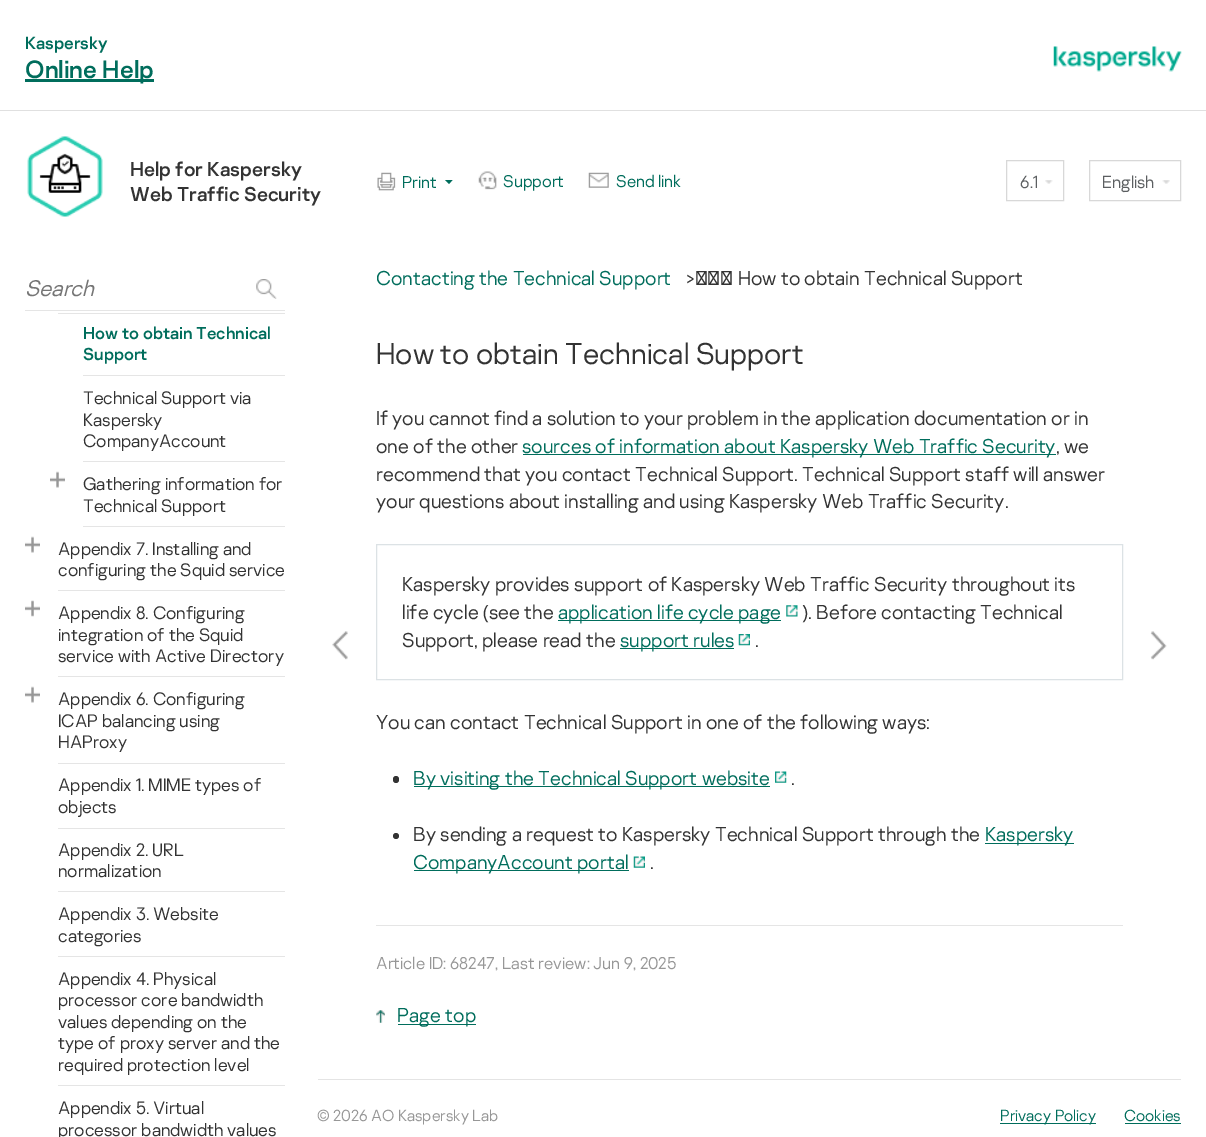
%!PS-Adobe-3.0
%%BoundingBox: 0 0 1206 1137
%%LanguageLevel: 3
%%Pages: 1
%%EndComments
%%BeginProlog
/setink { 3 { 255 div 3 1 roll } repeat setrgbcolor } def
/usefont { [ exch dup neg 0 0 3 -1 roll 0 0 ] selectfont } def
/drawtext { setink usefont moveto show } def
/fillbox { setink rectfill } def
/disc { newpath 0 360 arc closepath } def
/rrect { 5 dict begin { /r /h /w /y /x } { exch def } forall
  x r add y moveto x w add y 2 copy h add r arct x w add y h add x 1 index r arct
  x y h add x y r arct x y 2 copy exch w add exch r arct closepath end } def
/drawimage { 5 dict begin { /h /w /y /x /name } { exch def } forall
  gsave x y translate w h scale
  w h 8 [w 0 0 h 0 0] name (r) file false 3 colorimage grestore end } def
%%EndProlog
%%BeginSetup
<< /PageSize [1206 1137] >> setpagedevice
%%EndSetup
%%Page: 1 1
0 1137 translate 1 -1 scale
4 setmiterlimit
0 0 1206 1137 255 255 255 fillbox
0 110 1206 1 224 224 224 fillbox
(Kaspersky) 25 49 /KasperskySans-Regular 17.5 0 109 92 drawtext
25 79 129 3 0 109 92 fillbox
(Online Help) 25 78 /KasperskySans-Regular 25 0 109 92 drawtext
(assets/img1.rgb) 1053 46 129 26 drawimage
(assets/img2.rgb) 27 136 76 81 drawimage
(Help for Kaspersky) 130 176 /KasperskySans-Regular 20 51 51 51 drawtext
(Web Traffic Security) 130 201 /KasperskySans-Regular 20 51 51 51 drawtext
(assets/img3.rgb) 377 172 19 19 drawimage
(Print) 402 188 /KasperskySans-Light 17 0 109 92 drawtext
445 180 moveto 452.5 180 lineto 449 184 lineto closepath fill
(assets/img4.rgb) 478 171 19 19 drawimage
(Support) 503 187 /KasperskySans-Light 17 0 109 92 drawtext
(assets/img5.rgb) 588 172 21 16 drawimage
(Send link) 616 187 /KasperskySans-Light 17 0 109 92 drawtext
216 216 216 setink
1006.5 160.5 57 40 rectstroke
(6.1) 1020 188 /KasperskySans-Light 17.5 92 95 97 drawtext
(assets/img6.rgb) 1045 180 8 4 drawimage
216 216 216 setink
1089.5 160.5 91 40 rectstroke
(English) 1102 188 /KasperskySans-Light 17.5 92 95 97 drawtext
(assets/img7.rgb) 1162 180 8 4 drawimage
25 310 260 1 229 229 229 fillbox
(Search) 25 296 /KasperskySans-LightItalic 22.5 117 117 117 drawtext
(assets/img8.rgb) 256 279 21 20 drawimage
58 313 227 1 229 229 229 fillbox
83 375 202 1 229 229 229 fillbox
(How to obtain Technical) 83 339 /KasperskySans-Regular 17.25 0 109 92 drawtext
(Support) 83 360 /KasperskySans-Regular 17.25 0 109 92 drawtext
83 461 202 1 229 229 229 fillbox
(Technical Support via) 83 404 /KasperskySans-Light 18 51 51 51 drawtext
(Kaspersky) 83 426 /KasperskySans-Light 18 51 51 51 drawtext
(CompanyAccount) 83 447 /KasperskySans-Light 18 51 51 51 drawtext
(assets/img9.rgb) 50 471 15 17 drawimage
83 526 202 1 229 229 229 fillbox
(Gathering information for) 83 490 /KasperskySans-Light 18 51 51 51 drawtext
(Technical Support) 83 512 /KasperskySans-Light 18 51 51 51 drawtext
(assets/img9.rgb) 25 536 15 17 drawimage
58 590 227 1 229 229 229 fillbox
(Appendix 7. Installing and) 58 555 /KasperskySans-Light 18 51 51 51 drawtext
(configuring the Squid service) 58 576 /KasperskySans-Light 18 51 51 51 drawtext
(assets/img10.rgb) 25 600 15 17 drawimage
58 676 227 1 229 229 229 fillbox
(Appendix 8. Configuring) 58 619 /KasperskySans-Light 18 51 51 51 drawtext
(integration of the Squid) 58 641 /KasperskySans-Light 18 51 51 51 drawtext
(service with Active Directory) 58 662 /KasperskySans-Light 18 51 51 51 drawtext
(assets/img9.rgb) 25 686 15 17 drawimage
58 763 227 1 229 229 229 fillbox
(Appendix 6. Configuring) 58 705 /KasperskySans-Light 18 51 51 51 drawtext
(ICAP balancing using) 58 727 /KasperskySans-Light 18 51 51 51 drawtext
(HAProxy) 58 748 /KasperskySans-Light 18 51 51 51 drawtext
58 828 227 1 229 229 229 fillbox
(Appendix 1. MIME types of) 58 791 /KasperskySans-Light 18 51 51 51 drawtext
(objects) 58 813 /KasperskySans-Light 18 51 51 51 drawtext
58 891 227 1 229 229 229 fillbox
(Appendix 2. URL) 58 856 /KasperskySans-Light 18 51 51 51 drawtext
(normalization) 58 877 /KasperskySans-Light 18 51 51 51 drawtext
58 956 227 1 229 229 229 fillbox
(Appendix 3. Website) 58 920 /KasperskySans-Light 18 51 51 51 drawtext
(categories) 58 942 /KasperskySans-Light 18 51 51 51 drawtext
58 1085 227 1 229 229 229 fillbox
(Appendix 4. Physical) 58 985 /KasperskySans-Light 18 51 51 51 drawtext
(processor core bandwidth) 58 1006 /KasperskySans-Light 18 51 51 51 drawtext
(values depending on the) 58 1028 /KasperskySans-Light 18 51 51 51 drawtext
(type of proxy server and the) 58 1049 /KasperskySans-Light 18 51 51 51 drawtext
(required protection level) 58 1071 /KasperskySans-Light 18 51 51 51 drawtext
(Appendix 5. Virtual) 58 1114 /KasperskySans-Light 18 51 51 51 drawtext
(processor bandwidth values) 58 1136 /KasperskySans-Light 18 51 51 51 drawtext
(assets/img11.rgb) 332 631 16 29 drawimage
(Contacting the Technical Support) 376 285 /KasperskySans-Light 20 0 109 92 drawtext
(>  How to obtain Technical Support) 686 285 /KasperskySans-Light 20 51 51 51 drawtext
(How to obtain Technical Support) 376 364 /KasperskySans-Light 30 51 51 51 drawtext
(If you cannot find a solution to your problem in the application documentation or in) 376 425 /KasperskySans-Light 20 51 51 51 drawtext
(one of the other) 376 453 /KasperskySans-Light 20 51 51 51 drawtext
523 454 533 1 0 109 92 fillbox
(sources of information about Kaspersky Web Traffic Security) 522 453 /KasperskySans-Light 20 0 109 92 drawtext
(, we) 1056 453 /KasperskySans-Light 20 51 51 51 drawtext
(recommend that you contact Technical Support. Technical Support staff will answer) 376 481 /KasperskySans-Light 20 51 51 51 drawtext
(your questions about installing and using Kaspersky Web Traffic Security.) 376 508 /KasperskySans-Light 20 51 51 51 drawtext
220 226 229 setink
376.5 544.5 746 135 rectstroke
(Kaspersky provides support of Kaspersky Web Traffic Security throughout its) 402 591 /KasperskySans-Light 20 51 51 51 drawtext
(life cycle \(see the) 402 619 /KasperskySans-Light 20 51 51 51 drawtext
558 620 223 1 0 109 92 fillbox
(application life cycle page) 558 619 /KasperskySans-Light 20 0 109 92 drawtext
(assets/img12.rgb) 786 605 12 12 drawimage
(\). Before contacting Technical) 802 619 /KasperskySans-Light 20 51 51 51 drawtext
(Support, please read the) 402 647 /KasperskySans-Light 20 51 51 51 drawtext
620 648 114 1 0 109 92 fillbox
(support rules) 620 647 /KasperskySans-Light 20 0 109 92 drawtext
(assets/img13.rgb) 738 634 12 12 drawimage
(.) 755 647 /KasperskySans-Light 20 51 51 51 drawtext
(You can contact Technical Support in one of the following ways:) 376 729 /KasperskySans-Light 20 51 51 51 drawtext
393 776 6 7 3 rrect fill
414 786 356 1 0 109 92 fillbox
(By visiting the Technical Support website) 413 785 /KasperskySans-Light 20 0 109 92 drawtext
(assets/img14.rgb) 775 771 12 12 drawimage
(.) 791 785 /KasperskySans-Light 20 51 51 51 drawtext
396 836 3 disc fill
(By sending a request to Kaspersky Technical Support through the) 413 841 /KasperskySans-Light 20 51 51 51 drawtext
985 843 89 1 0 109 92 fillbox
(Kaspersky) 985 841 /KasperskySans-Light 20 0 109 92 drawtext
414 870 215 1 0 109 92 fillbox
(CompanyAccount portal) 413 869 /KasperskySans-Light 20 0 109 92 drawtext
(assets/img15.rgb) 633 856 12 12 drawimage
(.) 650 869 /KasperskySans-Light 20 51 51 51 drawtext
376 925 747 1 229 229 229 fillbox
(Article ID: 68247, Last review: Jun 9, 2025) 376 969 /KasperskySans-Light 17 151 151 151 drawtext
(assets/img16.rgb) 376 1010 9 13 drawimage
398 1024 78 1 0 109 92 fillbox
(Page top) 397 1022 /KasperskySans-Light 20 0 109 92 drawtext
(assets/img17.rgb) 1150 631 17 29 drawimage
318 1079 863 1 228 228 228 fillbox
(© 2026 AO Kaspersky Lab) 317 1121 /KasperskySans-Light 16 151 151 151 drawtext
1000 1123 96 1 0 109 92 fillbox
(Privacy Policy) 1000 1121 /KasperskySans-Light 16 0 109 92 drawtext
(Cookies) 1124 1121 /KasperskySans-Light 16 0 109 92 drawtext
1125 1123 56 1 0 109 92 fillbox
showpage
%%EOF
